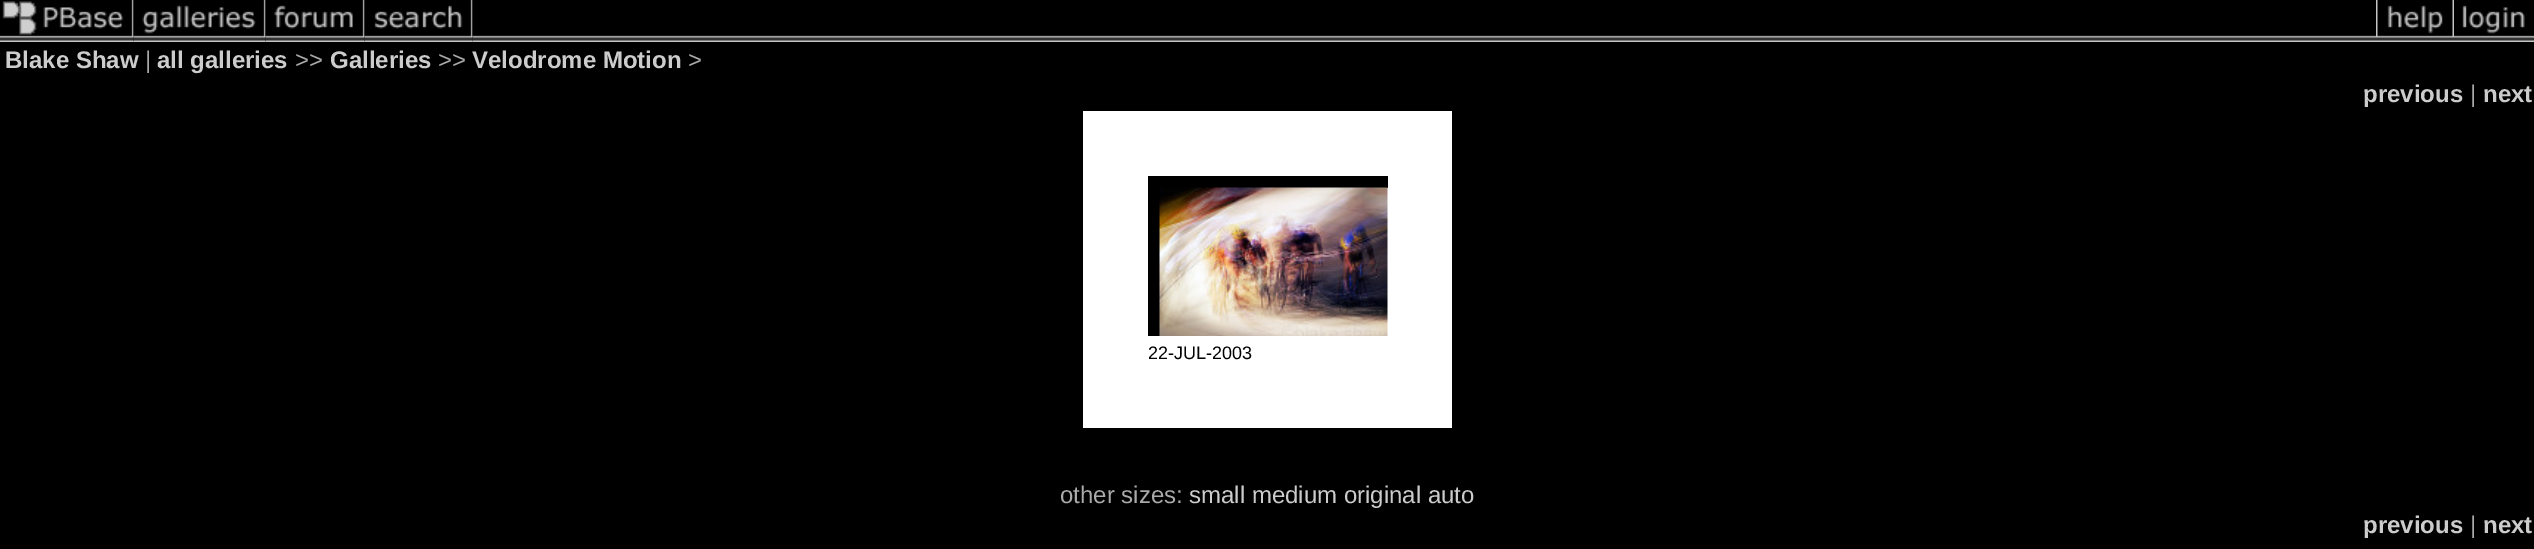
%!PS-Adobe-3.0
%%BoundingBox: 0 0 2534 549
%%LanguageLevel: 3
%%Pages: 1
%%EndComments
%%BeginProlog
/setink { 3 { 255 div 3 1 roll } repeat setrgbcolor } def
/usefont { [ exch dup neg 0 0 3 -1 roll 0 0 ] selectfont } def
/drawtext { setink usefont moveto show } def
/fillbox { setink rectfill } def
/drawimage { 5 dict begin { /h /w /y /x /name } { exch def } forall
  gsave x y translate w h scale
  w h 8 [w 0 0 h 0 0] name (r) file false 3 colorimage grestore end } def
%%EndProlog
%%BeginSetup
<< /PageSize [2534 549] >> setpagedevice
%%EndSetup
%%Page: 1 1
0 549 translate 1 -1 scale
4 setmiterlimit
0 0 2534 549 0 0 0 fillbox
(assets/img1.rgb) 0 0 134 42 drawimage
(assets/img2.rgb) 133 0 133 42 drawimage
(assets/img3.rgb) 265 0 100 42 drawimage
(assets/img4.rgb) 364 0 109 42 drawimage
(assets/img5.rgb) 472 0 1904 42 drawimage
(assets/img6.rgb) 2376 0 78 42 drawimage
(assets/img7.rgb) 2454 5 80 37 drawimage
(Blake Shaw) 5 68 /LiberationSans-Bold 24 204 204 204 drawtext
(|) 145 68 /LiberationSans-Regular 24 170 170 170 drawtext
(all galleries) 157 68 /LiberationSans-Bold 24 204 204 204 drawtext
(>>) 295 68 /LiberationSans-Regular 24 170 170 170 drawtext
(Galleries) 330 68 /LiberationSans-Bold 24 204 204 204 drawtext
(>>) 438 68 /LiberationSans-Regular 24 170 170 170 drawtext
(Velodrome Motion) 472 68 /LiberationSans-Bold 24 204 204 204 drawtext
(>) 688 68 /LiberationSans-Regular 24 170 170 170 drawtext
(previous) 2363 102 /LiberationSans-Bold 24 204 204 204 drawtext
(|) 2470 102 /LiberationSans-Regular 24 170 170 170 drawtext
(next) 2483 102 /LiberationSans-Bold 24 204 204 204 drawtext
1083 111 369 317 255 255 255 fillbox
gsave
1148 176 240 160 rectclip
0 0 0 setink
12 setlinewidth
1154 182 247 169 rectstroke
grestore
(assets/img8.rgb) 1159 187 229 149 drawimage
(22-JUL-2003) 1148 359 /LiberationSans-Regular 18 0 0 0 drawtext
(other sizes:) 1060 503 /LiberationSans-Regular 24 170 170 170 drawtext
(small medium original auto) 1189 503 /LiberationSans-Regular 24 204 204 204 drawtext
(previous) 2363 533 /LiberationSans-Bold 24 204 204 204 drawtext
(|) 2470 533 /LiberationSans-Regular 24 170 170 170 drawtext
(next) 2483 533 /LiberationSans-Bold 24 204 204 204 drawtext
showpage
%%EOF
